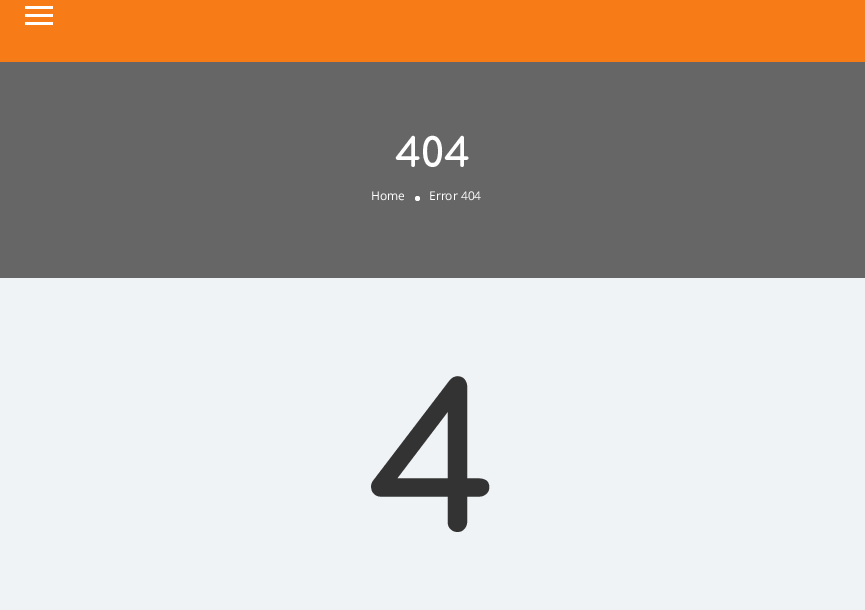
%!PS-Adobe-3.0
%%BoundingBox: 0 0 865 610
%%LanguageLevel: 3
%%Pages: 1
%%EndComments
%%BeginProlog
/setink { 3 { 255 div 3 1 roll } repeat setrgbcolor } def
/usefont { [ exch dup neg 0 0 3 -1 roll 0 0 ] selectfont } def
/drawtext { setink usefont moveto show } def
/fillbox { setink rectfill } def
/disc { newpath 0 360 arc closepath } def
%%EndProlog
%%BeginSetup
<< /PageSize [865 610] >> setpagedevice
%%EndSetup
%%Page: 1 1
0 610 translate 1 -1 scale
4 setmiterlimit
0 0 865 610 239 243 246 fillbox
0 0 865 62 247 124 24 fillbox
25 6 28 3 255 255 255 fillbox
25 14 28 3 255 255 255 fillbox
25 22 28 3 255 255 255 fillbox
0 62 865 216 102 102 102 fillbox
(404) 395 167 /Comfortaa-Bold 40 255 255 255 drawtext
(Home) 371 200 /OpenSans-Regular 12 255 255 255 drawtext
417.5 198.5 2.5 disc fill
(Error 404) 429 200 /OpenSans-Regular 12 255 255 255 drawtext
(4) 367 532 /Comfortaa-Bold 200 51 51 51 drawtext
showpage
%%EOF
